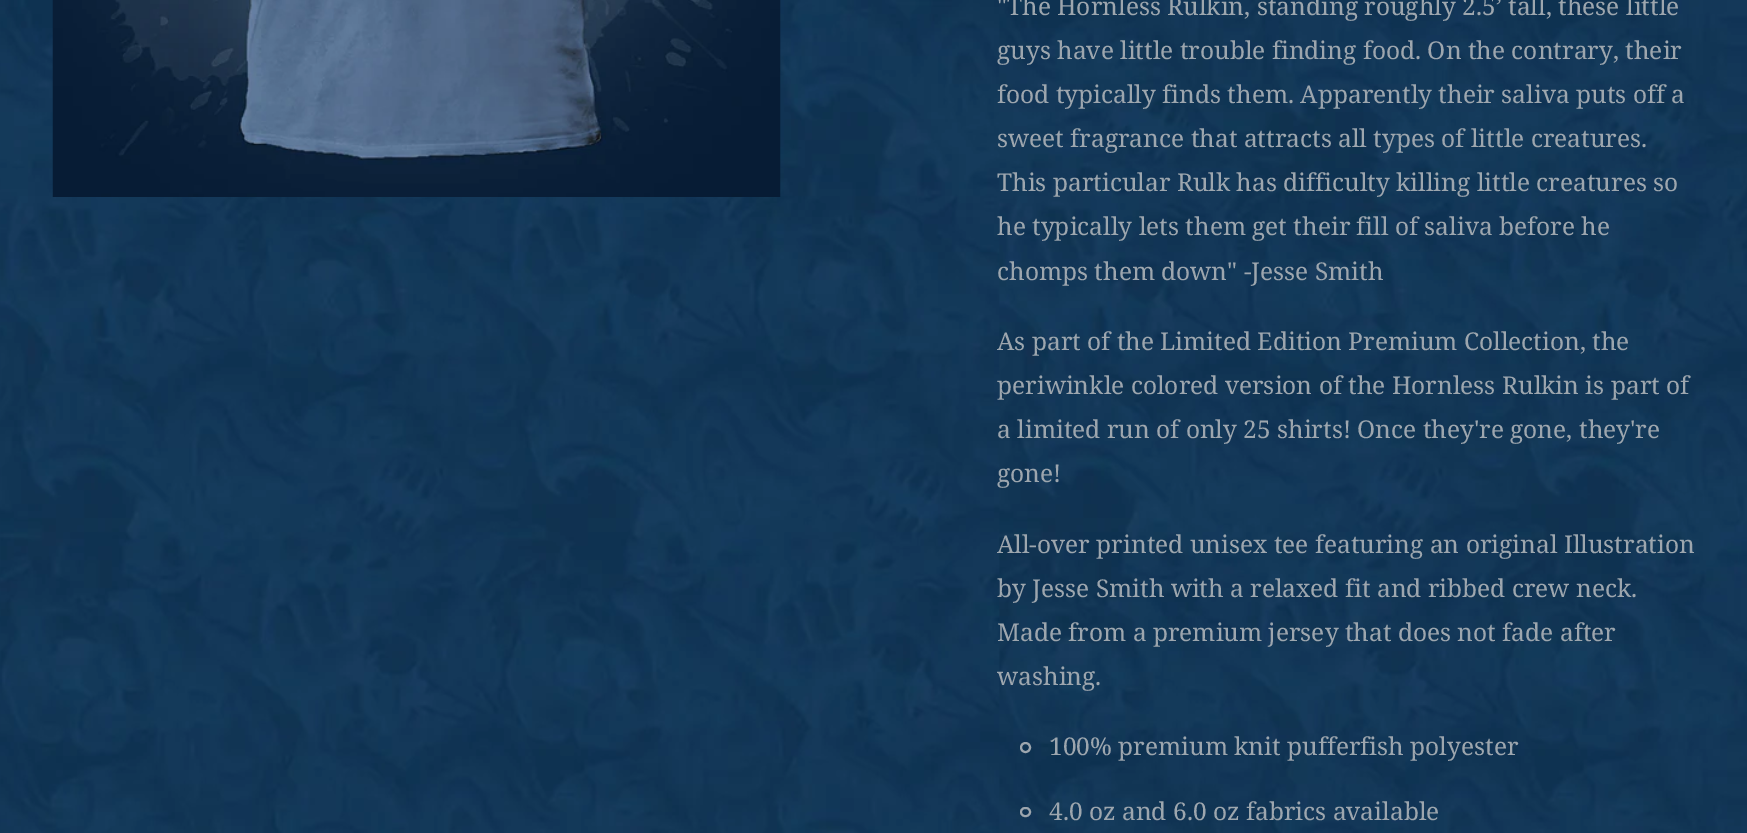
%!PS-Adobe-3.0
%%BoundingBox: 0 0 1747 833
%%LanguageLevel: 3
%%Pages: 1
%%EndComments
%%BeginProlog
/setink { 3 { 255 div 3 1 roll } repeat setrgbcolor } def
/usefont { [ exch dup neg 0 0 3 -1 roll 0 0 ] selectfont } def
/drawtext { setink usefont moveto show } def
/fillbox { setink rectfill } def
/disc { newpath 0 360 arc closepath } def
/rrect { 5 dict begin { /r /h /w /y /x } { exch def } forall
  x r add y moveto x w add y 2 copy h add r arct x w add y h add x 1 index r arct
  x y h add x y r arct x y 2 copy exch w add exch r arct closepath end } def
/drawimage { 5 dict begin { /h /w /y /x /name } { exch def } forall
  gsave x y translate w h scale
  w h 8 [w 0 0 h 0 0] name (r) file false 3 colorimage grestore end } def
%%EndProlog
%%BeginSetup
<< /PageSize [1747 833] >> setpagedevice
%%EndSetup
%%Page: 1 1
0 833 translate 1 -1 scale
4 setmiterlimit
0 0 1747 833 255 255 255 fillbox
(assets/img1.rgb) 0 0 1747 833 drawimage
(assets/img2.rgb) 52 0 729 197 drawimage
("The Hornless Rulkin, standing roughly 2.5’ tall, these little) 997 15 /NotoSerif-Regular 24.5 157 166 174 drawtext
(guys have little trouble finding food. On the contrary, their) 997 59 /NotoSerif-Regular 24.5 157 166 174 drawtext
(food typically finds them. Apparently their saliva puts off a) 997 103 /NotoSerif-Regular 24.5 157 166 174 drawtext
(sweet fragrance that attracts all types of little creatures.) 997 147 /NotoSerif-Regular 24.5 157 166 174 drawtext
(This particular Rulk has difficulty killing little creatures so) 997 191 /NotoSerif-Regular 24.5 157 166 174 drawtext
(he typically lets them get their fill of saliva before he) 997 235 /NotoSerif-Regular 24.5 157 166 174 drawtext
(chomps them down" -Jesse Smith) 997 280 /NotoSerif-Regular 24.5 157 166 174 drawtext
(As part of the Limited Edition Premium Collection, the) 997 350 /NotoSerif-Regular 24.5 157 166 174 drawtext
(periwinkle colored version of the Hornless Rulkin is part of) 997 394 /NotoSerif-Regular 24.5 157 166 174 drawtext
(a limited run of only 25 shirts! Once they're gone, they're) 997 438 /NotoSerif-Regular 24.5 157 166 174 drawtext
(gone!) 997 482 /NotoSerif-Regular 24.5 157 166 174 drawtext
(All-over printed unisex tee featuring an original Illustration) 997 553 /NotoSerif-Regular 24.5 157 166 174 drawtext
(by Jesse Smith with a relaxed fit and ribbed crew neck.) 997 597 /NotoSerif-Regular 24.5 157 166 174 drawtext
(Made from a premium jersey that does not fade after) 997 641 /NotoSerif-Regular 24.5 157 166 174 drawtext
(washing.) 997 685 /NotoSerif-Regular 24.5 157 166 174 drawtext
2 setlinewidth
1025.5 747.5 4.5 disc stroke
(100% premium knit pufferfish polyester) 1049 755 /NotoSerif-Regular 24.5 157 166 174 drawtext
1021 808 9 8 4 rrect stroke
(4.0 oz and 6.0 oz fabrics available) 1049 820 /NotoSerif-Regular 24.5 157 166 174 drawtext
showpage
%%EOF
